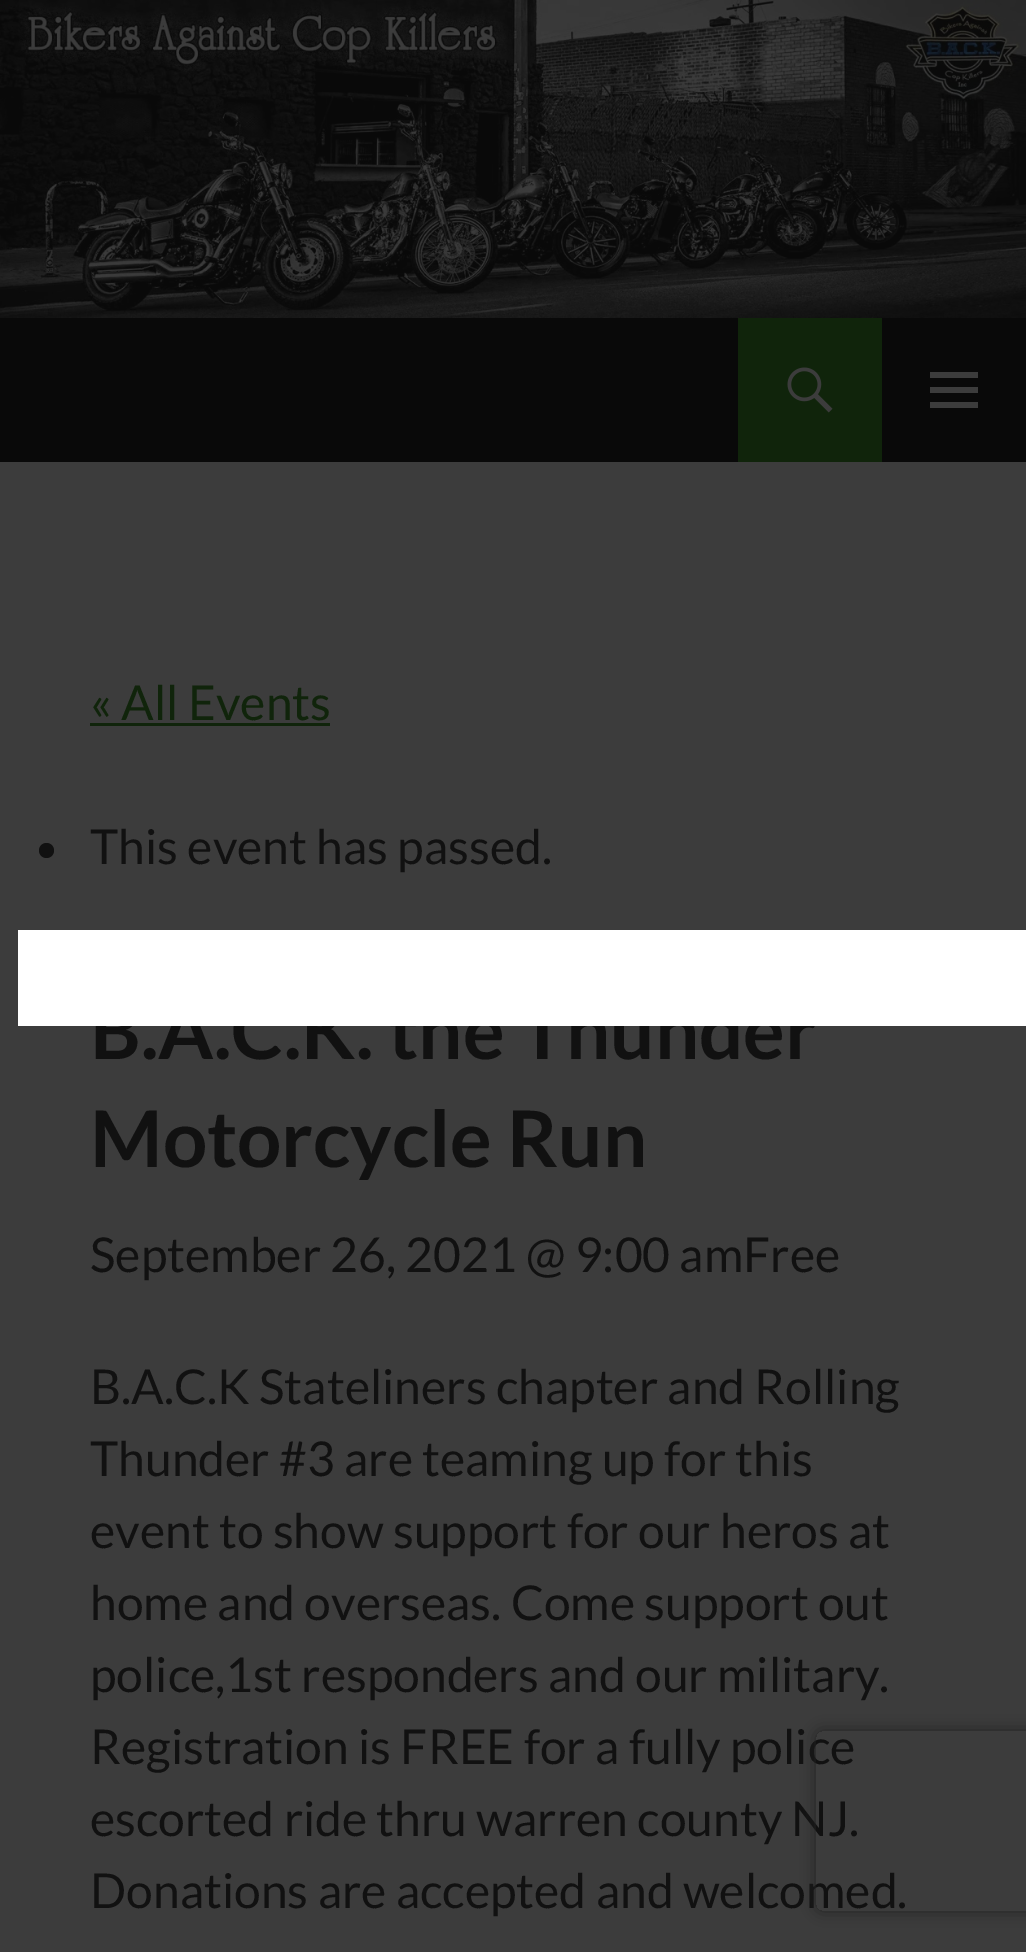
%!PS-Adobe-3.0
%%BoundingBox: 0 0 1026 1952
%%LanguageLevel: 3
%%Pages: 1
%%EndComments
%%BeginProlog
/setink { 3 { 255 div 3 1 roll } repeat setrgbcolor } def
/usefont { [ exch dup neg 0 0 3 -1 roll 0 0 ] selectfont } def
/drawtext { setink usefont moveto show } def
/fillbox { setink rectfill } def
/setalpha { dup .setfillconstantalpha .setstrokeconstantalpha } def
/disc { newpath 0 360 arc closepath } def
/rrect { 5 dict begin { /r /h /w /y /x } { exch def } forall
  x r add y moveto x w add y 2 copy h add r arct x w add y h add x 1 index r arct
  x y h add x y r arct x y 2 copy exch w add exch r arct closepath end } def
/softshadow { 12 dict begin { /a /b /q /h /w /y /x } { exch def } forall gsave /was 0 def
  9 -2 -9 { dup b mul 4 div /e exch def 1 sub .425 mul 2.718 exch exp 1 add a .99 .min exch div /now exch def
    1 1 now sub 1 was sub div sub setalpha /was now def
    w h .min e 2 mul add 0 gt { x e sub y e sub w e 2 mul add h e 2 mul add
      q e add b .6 mul add w h .min 2 div e add .min 0 .max rrect fill } if } for grestore end } def
/drawimage { 5 dict begin { /h /w /y /x /name } { exch def } forall
  gsave x y translate w h scale
  w h 8 [w 0 0 h 0 0] name (r) file false 3 colorimage grestore end } def
%%EndProlog
%%BeginSetup
<< /PageSize [1026 1952] /PageUsesTransparency true >> setpagedevice
%%EndSetup
%%Page: 1 1
0 .pushpdf14devicefilter
0 1952 translate 1 -1 scale
4 setmiterlimit
0 0 1026 1952 60 60 60 fillbox
(assets/img1.rgb) 0 0 1026 318 drawimage
0 318 1026 144 9 9 9 fillbox
738 318 144 144 16 36 11 fillbox
(assets/img2.rgb) 787 367 46 46 drawimage
60 60 60 setink
930 408 moveto 930 402 lineto 978 402 lineto 978 408 lineto closepath 930 372 moveto 978 372 lineto 978 378 lineto 930 378 lineto closepath 930 393 moveto 930 387 lineto 978 387 lineto 978 393 lineto closepath fill
(« All Events) 90 720 /Lato-Regular 48 16 36 11 drawtext
90 723 240 3 16 36 11 fillbox
17 17 17 setink
46.5 850.5 7.5 disc fill
(This event has passed.) 90 864 /Lato-Regular 48 17 17 17 drawtext
(B.A.C.K. the Thunder) 90 1059 /Lato-Bold 78 17 17 17 drawtext
(Motorcycle Run) 90 1167 /Lato-Bold 78 17 17 17 drawtext
(September 26, 2021 @ 9:00 amFree) 90 1272 /Lato-Regular 48 17 17 17 drawtext
(B.A.C.K Stateliners chapter and Rolling) 90 1404 /Lato-Regular 48 17 17 17 drawtext
(Thunder #3 are teaming up for this) 90 1476 /Lato-Regular 48 17 17 17 drawtext
(event to show support for our heros at) 90 1548 /Lato-Regular 48 17 17 17 drawtext
(home and overseas. Come support out) 90 1620 /Lato-Regular 48 17 17 17 drawtext
(police,1st responders and our military.) 90 1692 /Lato-Regular 48 17 17 17 drawtext
(Registration is FREE for a fully police) 90 1764 /Lato-Regular 48 17 17 17 drawtext
(escorted ride thru warren county NJ.) 90 1836 /Lato-Regular 48 17 17 17 drawtext
(Donations are accepted and welcomed.) 90 1908 /Lato-Regular 48 17 17 17 drawtext
18 930 1008 96 255 255 255 fillbox
gsave
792 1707 moveto 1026 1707 lineto 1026 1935 lineto 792 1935 lineto closepath 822 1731 moveto 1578 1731 lineto 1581.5 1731 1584 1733.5 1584 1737 curveto 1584 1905 lineto 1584 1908.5 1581.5 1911 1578 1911 curveto 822 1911 lineto 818.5 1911 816 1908.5 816 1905 curveto 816 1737 lineto 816 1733.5 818.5 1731 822 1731 curveto closepath eoclip newpath
34 34 34 setink
816 1731 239 180 6 7.5 1 softshadow
grestore
.poppdf14devicefilter showpage
%%EOF
